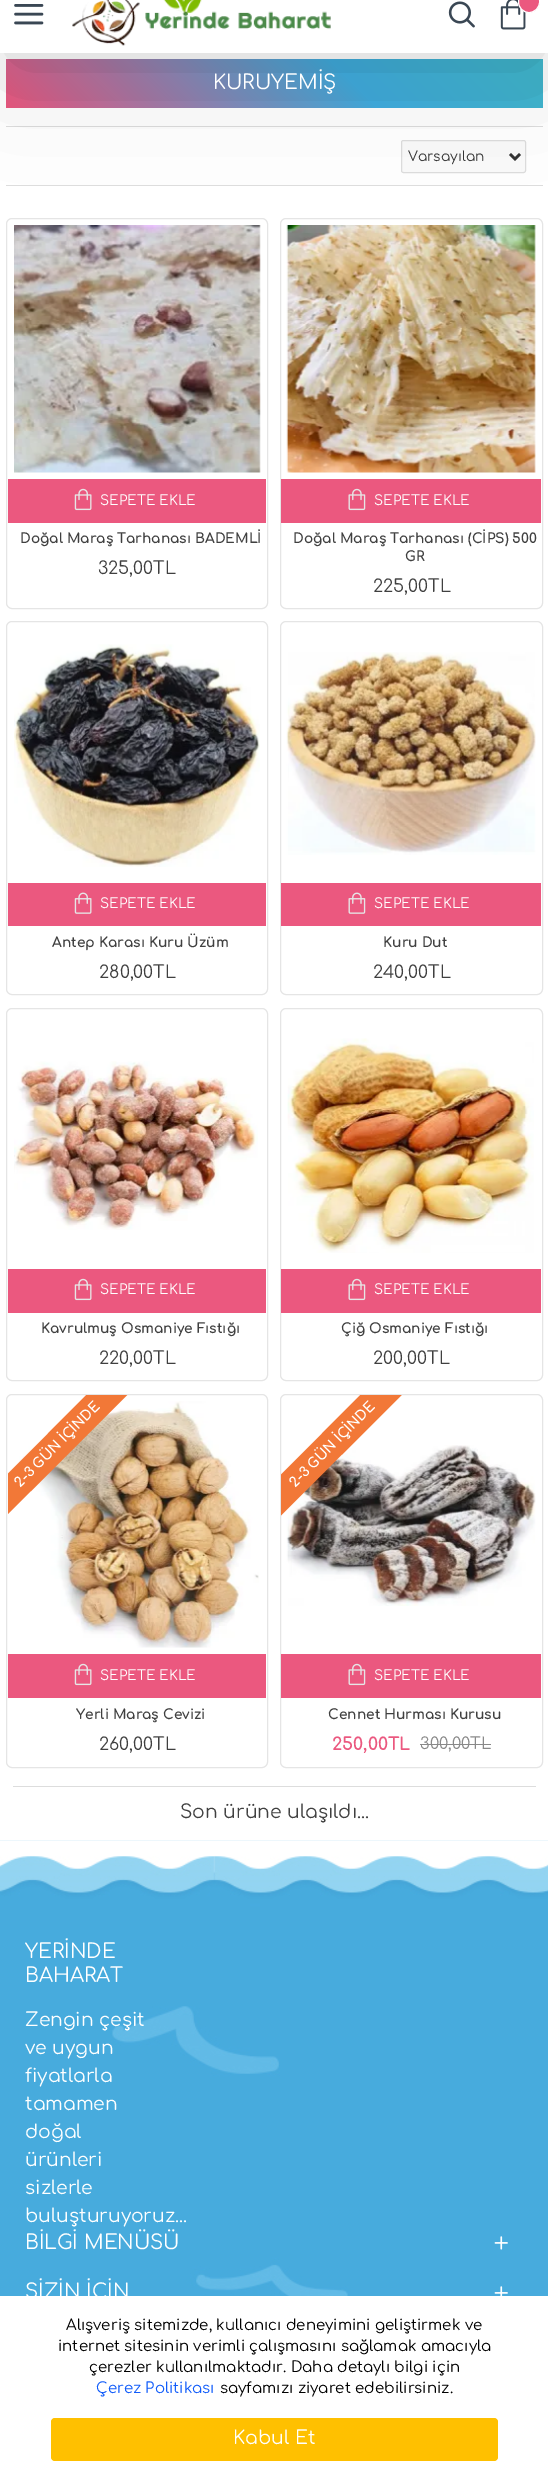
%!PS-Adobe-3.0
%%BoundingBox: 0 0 548 2480
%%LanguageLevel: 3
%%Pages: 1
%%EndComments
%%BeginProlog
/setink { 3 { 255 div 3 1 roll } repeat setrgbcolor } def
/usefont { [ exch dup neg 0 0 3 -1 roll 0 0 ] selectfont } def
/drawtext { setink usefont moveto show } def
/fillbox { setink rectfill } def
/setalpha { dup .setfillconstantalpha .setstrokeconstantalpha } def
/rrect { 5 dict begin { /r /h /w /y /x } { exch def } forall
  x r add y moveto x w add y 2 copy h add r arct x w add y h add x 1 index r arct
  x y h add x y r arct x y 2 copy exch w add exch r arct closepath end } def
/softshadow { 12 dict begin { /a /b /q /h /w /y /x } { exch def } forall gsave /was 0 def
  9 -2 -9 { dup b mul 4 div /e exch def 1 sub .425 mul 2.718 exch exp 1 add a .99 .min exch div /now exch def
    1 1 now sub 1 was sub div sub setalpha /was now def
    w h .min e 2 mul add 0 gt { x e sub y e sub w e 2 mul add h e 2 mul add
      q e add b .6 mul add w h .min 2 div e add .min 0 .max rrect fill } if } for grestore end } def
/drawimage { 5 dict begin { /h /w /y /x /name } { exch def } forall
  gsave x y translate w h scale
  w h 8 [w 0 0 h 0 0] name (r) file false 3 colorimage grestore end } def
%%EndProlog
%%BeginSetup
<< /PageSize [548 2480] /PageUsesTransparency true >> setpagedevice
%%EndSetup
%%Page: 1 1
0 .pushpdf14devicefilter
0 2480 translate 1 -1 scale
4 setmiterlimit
0 0 548 2480 255 255 255 fillbox
gsave 6 59 moveto 543 59 lineto 543 108 lineto 6 108 lineto closepath clip newpath
<< /ShadingType 2 /ColorSpace /DeviceRGB /Coords [530 632 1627 -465] /Extend [true true] /Function << /FunctionType 3 /Domain [0 1] /Functions [<< /FunctionType 2 /Domain [0 1] /C0 [0.922 0.345 0.498] /C1 [0.255 0.671 0.871] /N 1 >> << /FunctionType 2 /Domain [0 1] /C0 [0.255 0.671 0.871] /C1 [0.259 0.749 0.753] /N 1 >> << /FunctionType 2 /Domain [0 1] /C0 [0.259 0.749 0.753] /C1 [0.255 0.671 0.871] /N 1 >> << /FunctionType 2 /Domain [0 1] /C0 [0.255 0.671 0.871] /C1 [0.922 0.345 0.498] /N 1 >> << /FunctionType 2 /Domain [0 1] /C0 [0.922 0.345 0.498] /C1 [0.922 0.345 0.498] /N 1 >>] /Bounds [0.17 0.33 0.5 0.67] /Encode [0 1 0 1 0 1 0 1 0 1] >> >> shfill grestore
6 126 537 1 221 221 221 fillbox
6 185 537 1 221 221 221 fillbox
250 250 250 setink
401.5 140.5 124 32 2 rrect gsave fill grestore
221 221 221 setink
stroke
51 51 51 setink
2.5 setlinewidth
510 154 moveto 515 159 lineto 520 154 lineto stroke
229 229 229 setink
1 setlinewidth
6.5 218.5 261 390 5.5 rrect stroke
(assets/img5.rgb) 14 225 247 248 drawimage
280.5 218.5 262 390 5.5 rrect stroke
(assets/img7.rgb) 286 225 250 248 drawimage
0 0 0 setink
13 9 523 50 0 56 0.2 softshadow
0 0 548 53 255 255 255 fillbox
(assets/img1.rgb) 14 4 30 21 drawimage
(assets/img2.rgb) 448 1 27 27 drawimage
(assets/img3.rgb) 500 0 26 30 drawimage
235 88 127 setink
518.5 -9.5 21 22 10.5 rrect gsave fill grestore
255 255 255 setink
stroke
(assets/img4.rgb) 72 0 259 46 drawimage
(KURUYEMİŞ) 213 89 /Comfortaa-Regular 20 255 255 255 drawtext
(Varsayılan) 408 161 /Comfortaa-Regular 13.75 51 51 51 drawtext
8 479 258 44 235 88 127 fillbox
(assets/img6.rgb) 74 488 18 23 drawimage
(SEPETE EKLE) 100 505 /Comfortaa-Regular 13.75 255 255 255 drawtext
(Doğal Maraş Tarhanası BADEMLİ) 20 543 /Comfortaa-Bold 13.75 64 64 64 drawtext
(325,00TL) 98 574 /Comfortaa-Regular 17.5 64 64 64 drawtext
281 479 260 44 235 88 127 fillbox
(assets/img8.rgb) 348 488 18 23 drawimage
(SEPETE EKLE) 374 505 /Comfortaa-Regular 13.75 255 255 255 drawtext
(Doğal Maraş Tarhanası \(CİPS\) 500) 293 543 /Comfortaa-Bold 13.75 64 64 64 drawtext
(GR) 405 561 /Comfortaa-Bold 13.75 64 64 64 drawtext
(225,00TL) 373 592 /Comfortaa-Regular 17.5 64 64 64 drawtext
229 229 229 setink
6.5 621.5 261 373 5.5 rrect stroke
(assets/img9.rgb) 14 644 246 223 drawimage
8 883 258 43 235 88 127 fillbox
(assets/img10.rgb) 74 892 18 22 drawimage
(SEPETE EKLE) 100 908 /Comfortaa-Regular 13.75 255 255 255 drawtext
(Antep Karası Kuru Üzüm) 52 947 /Comfortaa-Bold 13.75 64 64 64 drawtext
(280,00TL) 99 978 /Comfortaa-Regular 17.5 64 64 64 drawtext
229 229 229 setink
280.5 621.5 262 373 5.5 rrect stroke
(assets/img11.rgb) 286 652 250 203 drawimage
281 883 260 43 235 88 127 fillbox
(assets/img12.rgb) 348 892 18 22 drawimage
(SEPETE EKLE) 374 908 /Comfortaa-Regular 13.75 255 255 255 drawtext
(Kuru Dut) 383 947 /Comfortaa-Bold 13.75 64 64 64 drawtext
(240,00TL) 373 978 /Comfortaa-Regular 17.5 64 64 64 drawtext
229 229 229 setink
6.5 1008.5 261 372 5.5 rrect stroke
(assets/img13.rgb) 14 1061 244 169 drawimage
8 1269 258 44 235 88 127 fillbox
(assets/img6.rgb) 74 1278 18 23 drawimage
(SEPETE EKLE) 100 1294 /Comfortaa-Regular 13.75 255 255 255 drawtext
(Kavrulmuş Osmaniye Fıstığı) 41 1333 /Comfortaa-Bold 13.75 64 64 64 drawtext
(220,00TL) 99 1364 /Comfortaa-Regular 17.5 64 64 64 drawtext
229 229 229 setink
280.5 1008.5 262 372 5.5 rrect stroke
(assets/img14.rgb) 287 1038 247 215 drawimage
281 1269 260 44 235 88 127 fillbox
(assets/img8.rgb) 348 1278 18 23 drawimage
(SEPETE EKLE) 374 1294 /Comfortaa-Regular 13.75 255 255 255 drawtext
(Çiğ Osmaniye Fıstığı) 341 1333 /Comfortaa-Bold 13.75 64 64 64 drawtext
(200,00TL) 373 1364 /Comfortaa-Regular 17.5 64 64 64 drawtext
229 229 229 setink
6.5 1394.5 261 373 5.5 rrect stroke
(assets/img15.rgb) 19 1401 240 247 drawimage
gsave
8 1395 258 259 rectclip
242 120 55 setink
-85 1567 moveto 180 1301 lineto 200 1322 lineto -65 1587 lineto closepath fill
grestore
/Comfortaa-Bold 13.75 usefont
255 255 255 setink
gsave 20 1488 translate -45 rotate 0 0 moveto (2-3 GÜN İÇİNDE) show grestore
8 1654 258 44 235 88 127 fillbox
(assets/img6.rgb) 74 1663 18 23 drawimage
(SEPETE EKLE) 100 1680 /Comfortaa-Regular 13.75 255 255 255 drawtext
(Yerli Maraş Cevizi) 76 1719 /Comfortaa-Bold 13.75 64 64 64 drawtext
(260,00TL) 99 1750 /Comfortaa-Regular 17.5 64 64 64 drawtext
229 229 229 setink
280.5 1394.5 262 373 5.5 rrect stroke
(assets/img16.rgb) 286 1445 250 161 drawimage
gsave
281 1395 260 259 rectclip
242 120 55 setink
189 1567 moveto 454 1301 lineto 475 1322 lineto 209 1587 lineto closepath fill
grestore
/Comfortaa-Bold 13.75 usefont
255 255 255 setink
gsave 295 1488 translate -45 rotate 0 0 moveto (2-3 GÜN İÇİNDE) show grestore
281 1654 260 44 235 88 127 fillbox
(assets/img8.rgb) 348 1663 18 23 drawimage
(SEPETE EKLE) 374 1680 /Comfortaa-Regular 13.75 255 255 255 drawtext
(Cennet Hurması Kurusu) 328 1719 /Comfortaa-Bold 13.75 64 64 64 drawtext
(250,00TL) 332 1750 /Comfortaa-Bold 17.5 235 88 127 drawtext
(300,00TL) 420 1749 /Comfortaa-Regular 16.25 137 137 137 drawtext
420 1744 71 1 137 137 137 fillbox
13 1786 523 1 221 221 221 fillbox
(Son ürüne ulaşıldı...) 180 1818 /Comfortaa-Regular 18.75 64 64 64 drawtext
(assets/img17.rgb) 0 1840 548 456 drawimage
(YERİNDE) 25 1958 /Comfortaa-Regular 20 255 255 255 drawtext
(BAHARAT) 25 1982 /Comfortaa-Regular 20 255 255 255 drawtext
(Zengin çeşit) 25 2026 /Comfortaa-Regular 18.75 255 255 255 drawtext
(ve uygun) 25 2054 /Comfortaa-Regular 18.75 255 255 255 drawtext
(fiyatlarla) 25 2082 /Comfortaa-Regular 18.75 255 255 255 drawtext
(tamamen) 25 2110 /Comfortaa-Regular 18.75 255 255 255 drawtext
(doğal) 25 2138 /Comfortaa-Regular 18.75 255 255 255 drawtext
(ürünleri) 25 2166 /Comfortaa-Regular 18.75 255 255 255 drawtext
(sizlerle) 25 2194 /Comfortaa-Regular 18.75 255 255 255 drawtext
(buluşturuyoruz...) 25 2222 /Comfortaa-Regular 18.75 255 255 255 drawtext
(BİLGİ MENÜSÜ) 25 2249 /Comfortaa-Regular 20 255 255 255 drawtext
(assets/img18.rgb) 494 2236 14 14 drawimage
(SİZİN İÇİN) 25 2298 /Comfortaa-Regular 20 255 255 255 drawtext
(assets/img19.rgb) 494 2286 14 10 drawimage
(Alışveriş sitemizde, kullanıcı deneyimini geliştirmek ve) 66 2330 /Comfortaa-Regular 15 0 0 0 drawtext
(internet sitesinin verimli çalışmasını sağlamak amacıyla) 58 2351 /Comfortaa-Regular 15 0 0 0 drawtext
(çerezler kullanılmaktadır. Daha detaylı bilgi için) 89 2372 /Comfortaa-Regular 15 0 0 0 drawtext
(Çerez Politikası) 96 2393 /Comfortaa-Regular 15 17 92 250 drawtext
(sayfamızı ziyaret edebilirsiniz.) 220 2393 /Comfortaa-Regular 15 0 0 0 drawtext
255 192 0 setink
51 2418 447 43 4 rrect fill
(Kabul Et) 233 2444 /Comfortaa-Regular 18.75 255 255 255 drawtext
.poppdf14devicefilter showpage
%%EOF
